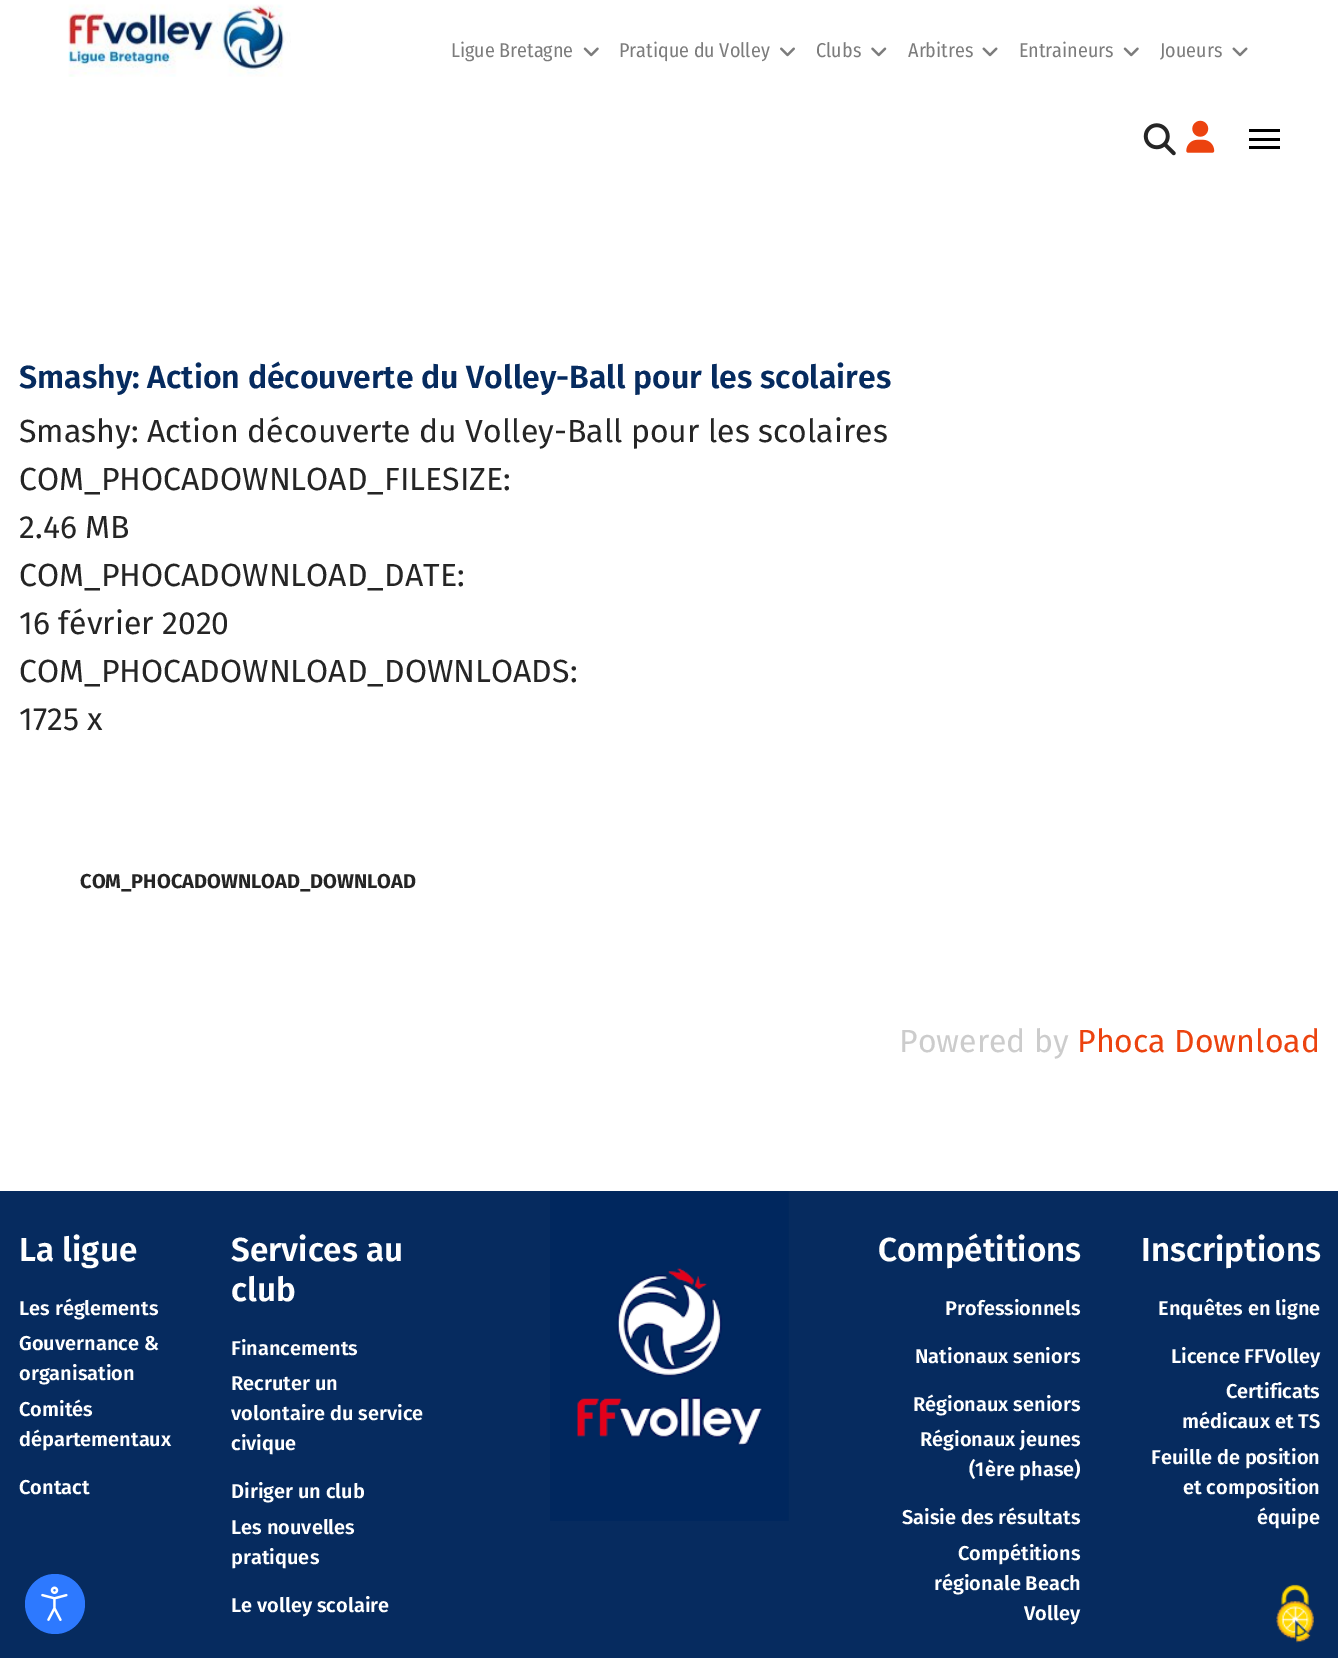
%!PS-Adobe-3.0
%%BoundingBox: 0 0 1338 1658
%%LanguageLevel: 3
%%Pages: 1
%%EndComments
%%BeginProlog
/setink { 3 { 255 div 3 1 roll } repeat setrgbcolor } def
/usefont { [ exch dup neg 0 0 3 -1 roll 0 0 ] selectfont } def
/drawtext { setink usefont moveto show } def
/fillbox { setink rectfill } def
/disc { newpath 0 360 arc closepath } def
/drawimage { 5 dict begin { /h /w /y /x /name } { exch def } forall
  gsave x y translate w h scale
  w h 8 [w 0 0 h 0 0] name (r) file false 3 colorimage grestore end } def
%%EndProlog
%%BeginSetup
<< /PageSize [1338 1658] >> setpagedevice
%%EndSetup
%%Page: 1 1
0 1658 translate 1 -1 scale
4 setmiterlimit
0 0 1338 1658 255 255 255 fillbox
(assets/img1.rgb) 68 4 223 73 drawimage
(Ligue Bretagne) 451 57 /FiraSansCondensed-Regular 20 124 124 124 drawtext
(assets/img2.rgb) 583 47 16 10 drawimage
(Pratique du Volley) 619 57 /FiraSansCondensed-Regular 20 124 124 124 drawtext
(assets/img3.rgb) 780 47 15 10 drawimage
(Clubs) 816 57 /FiraSansCondensed-Regular 20 124 124 124 drawtext
(assets/img4.rgb) 871 47 16 10 drawimage
(Arbitres) 908 57 /FiraSansCondensed-Regular 20 124 124 124 drawtext
(assets/img5.rgb) 982 47 16 10 drawimage
(Entraineurs) 1019 57 /FiraSansCondensed-Regular 20 124 124 124 drawtext
(assets/img2.rgb) 1123 47 16 10 drawimage
(Joueurs) 1160 57 /FiraSansCondensed-Regular 20 124 124 124 drawtext
(assets/img5.rgb) 1232 47 16 10 drawimage
(assets/img6.rgb) 1143 123 33 33 drawimage
(assets/img7.rgb) 1186 120 29 33 drawimage
1249 129 31 3 0 0 0 fillbox
1249 138 31 3 0 0 0 fillbox
1249 146 31 3 0 0 0 fillbox
(Smashy: Action découverte du Volley-Ball pour les scolaires) 19 388 /FiraSans-SemiBold 32 6 43 95 drawtext
(Smashy: Action découverte du Volley-Ball pour les scolaires) 19 442 /FiraSans-Regular 32 37 37 37 drawtext
(COM_PHOCADOWNLOAD_FILESIZE:) 19 490 /FiraSans-Regular 32 37 37 37 drawtext
(2.46 MB) 19 538 /FiraSans-Regular 32 37 37 37 drawtext
(COM_PHOCADOWNLOAD_DATE:) 19 586 /FiraSans-Regular 32 37 37 37 drawtext
(16 février 2020) 19 634 /FiraSans-Regular 32 37 37 37 drawtext
(COM_PHOCADOWNLOAD_DOWNLOADS:) 19 682 /FiraSans-Regular 32 37 37 37 drawtext
(1725 x) 19 730 /FiraSans-Regular 32 37 37 37 drawtext
(COM_PHOCADOWNLOAD_DOWNLOAD) 80 888 /FiraSans-Bold 20 37 37 37 drawtext
(Powered by) 899 1052 /FiraSans-Regular 32 204 204 204 drawtext
(Phoca Download) 1077 1052 /FiraSans-Regular 32 236 67 15 drawtext
0 1191 1338 467 6 43 95 fillbox
(La ligue) 19 1261 /FiraSans-SemiBold 33.25 255 255 255 drawtext
(Les réglements) 19 1315 /FiraSans-SemiBold 20 255 255 255 drawtext
(Gouvernance &) 19 1350 /FiraSans-SemiBold 20 255 255 255 drawtext
(organisation) 19 1380 /FiraSans-SemiBold 20 255 255 255 drawtext
(Comités) 19 1416 /FiraSans-SemiBold 20 255 255 255 drawtext
(départementaux) 19 1446 /FiraSans-SemiBold 20 255 255 255 drawtext
(Contact) 19 1494 /FiraSans-SemiBold 20 255 255 255 drawtext
(Services au) 231 1261 /FiraSans-SemiBold 33.25 255 255 255 drawtext
(club) 231 1301 /FiraSans-SemiBold 33.25 255 255 255 drawtext
(Financements) 231 1355 /FiraSans-SemiBold 20 255 255 255 drawtext
(Recruter un) 231 1390 /FiraSans-SemiBold 20 255 255 255 drawtext
(volontaire du service) 231 1420 /FiraSans-SemiBold 20 255 255 255 drawtext
(civique) 231 1450 /FiraSans-SemiBold 20 255 255 255 drawtext
(Diriger un club) 231 1498 /FiraSans-SemiBold 20 255 255 255 drawtext
(Les nouvelles) 231 1534 /FiraSans-SemiBold 20 255 255 255 drawtext
(pratiques) 231 1564 /FiraSans-SemiBold 20 255 255 255 drawtext
(Le volley scolaire) 231 1612 /FiraSans-SemiBold 20 255 255 255 drawtext
(assets/img8.rgb) 550 1191 239 330 drawimage
(Compétitions) 878 1261 /FiraSans-SemiBold 33.25 255 255 255 drawtext
(Professionnels) 945 1315 /FiraSans-SemiBold 20 255 255 255 drawtext
(Nationaux seniors) 915 1363 /FiraSans-SemiBold 20 255 255 255 drawtext
(Régionaux seniors) 913 1411 /FiraSans-SemiBold 20 255 255 255 drawtext
(Régionaux jeunes) 920 1446 /FiraSans-SemiBold 20 255 255 255 drawtext
(\(1ère phase\)) 969 1476 /FiraSans-SemiBold 20 255 255 255 drawtext
(Saisie des résultats) 902 1524 /FiraSans-SemiBold 20 255 255 255 drawtext
(Compétitions) 958 1560 /FiraSans-SemiBold 20 255 255 255 drawtext
(régionale Beach) 934 1590 /FiraSans-SemiBold 20 255 255 255 drawtext
(Volley) 1024 1620 /FiraSans-SemiBold 20 255 255 255 drawtext
(Inscriptions) 1141 1261 /FiraSans-SemiBold 33.25 255 255 255 drawtext
(Enquêtes en ligne) 1158 1315 /FiraSans-SemiBold 20 255 255 255 drawtext
(Licence FFVolley) 1171 1363 /FiraSans-SemiBold 20 255 255 255 drawtext
(Certificats) 1226 1398 /FiraSans-SemiBold 20 255 255 255 drawtext
(médicaux et TS) 1182 1428 /FiraSans-SemiBold 20 255 255 255 drawtext
(Feuille de position) 1151 1464 /FiraSans-SemiBold 20 255 255 255 drawtext
(et composition) 1183 1494 /FiraSans-SemiBold 20 255 255 255 drawtext
(équipe) 1257 1524 /FiraSans-SemiBold 20 255 255 255 drawtext
45 121 255 setink
55 1604 30 disc fill
(assets/img9.rgb) 41 1586 27 35 drawimage
(assets/img10.rgb) 1276 1584 38 59 drawimage
showpage
%%EOF
